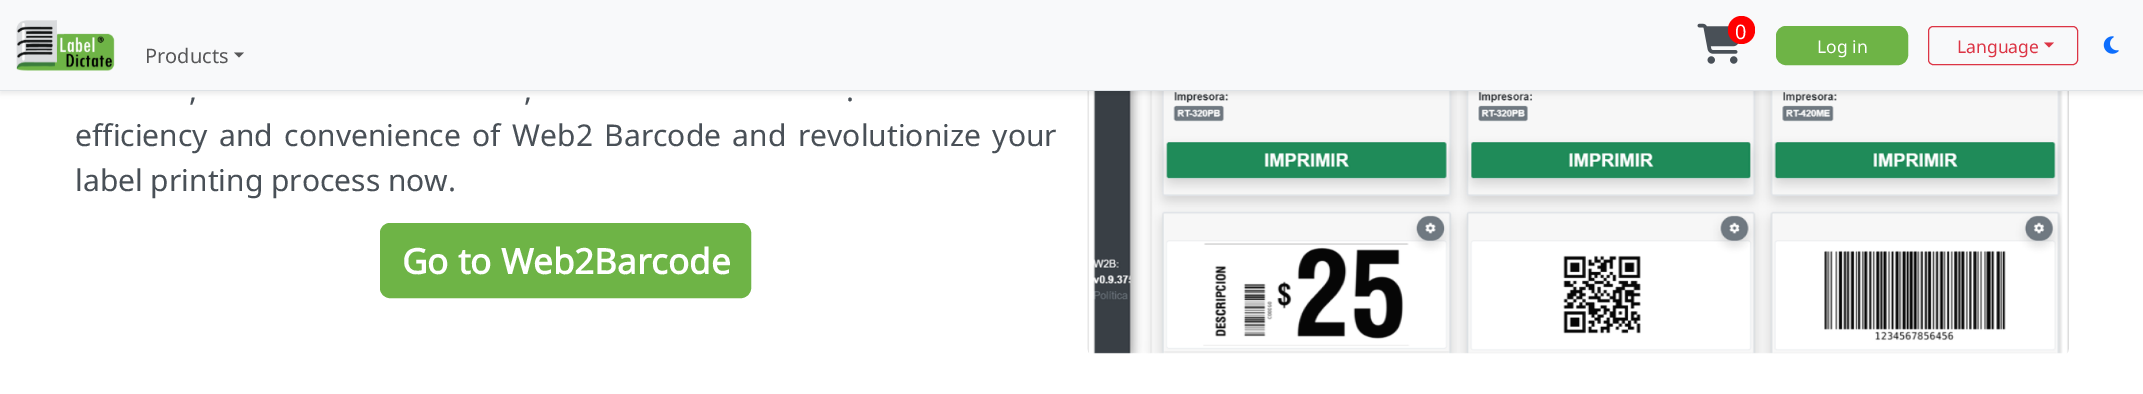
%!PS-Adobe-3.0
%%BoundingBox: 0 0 2143 394
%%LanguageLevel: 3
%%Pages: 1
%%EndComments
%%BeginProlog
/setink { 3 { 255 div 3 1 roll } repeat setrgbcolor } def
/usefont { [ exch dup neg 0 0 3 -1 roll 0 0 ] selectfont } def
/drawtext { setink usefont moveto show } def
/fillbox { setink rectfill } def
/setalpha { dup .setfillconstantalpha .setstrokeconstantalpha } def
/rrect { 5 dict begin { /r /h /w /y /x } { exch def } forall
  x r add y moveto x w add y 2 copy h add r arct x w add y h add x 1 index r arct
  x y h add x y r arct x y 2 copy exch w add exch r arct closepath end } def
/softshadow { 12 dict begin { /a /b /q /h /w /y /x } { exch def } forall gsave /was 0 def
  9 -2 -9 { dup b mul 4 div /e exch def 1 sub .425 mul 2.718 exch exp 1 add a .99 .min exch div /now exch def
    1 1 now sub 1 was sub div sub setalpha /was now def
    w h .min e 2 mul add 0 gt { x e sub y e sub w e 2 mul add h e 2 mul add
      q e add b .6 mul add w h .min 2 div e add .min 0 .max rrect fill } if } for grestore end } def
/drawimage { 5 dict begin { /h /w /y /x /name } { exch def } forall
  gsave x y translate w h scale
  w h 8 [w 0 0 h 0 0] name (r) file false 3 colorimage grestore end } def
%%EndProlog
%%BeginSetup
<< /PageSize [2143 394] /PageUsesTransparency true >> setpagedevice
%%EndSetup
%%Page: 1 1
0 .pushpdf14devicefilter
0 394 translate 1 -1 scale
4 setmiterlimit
0 0 2143 394 255 255 255 fillbox
(assets/img4.rgb) 1087 91 982 263 drawimage
0 0 0 setink
0 3 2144 91 0 2.5 0.07 softshadow
0 0 2143 90 248 249 250 fillbox
0 90 2143 1 222 226 230 fillbox
(assets/img1.rgb) 16 20 99 51 drawimage
(Products) 145 63 /NotoSans-Regular 20 87 87 88 drawtext
234 52.5 moveto 244 52.5 lineto 239 57.5 lineto closepath fill
(assets/img2.rgb) 1697 23 42 41 drawimage
255 0 0 setink
1728 16 27 28 13.5 rrect fill
(0) 1735 39 /NotoSans-Regular 20 255 255 255 drawtext
110 180 70 setink
1776.5 26.5 131 38 9.5 rrect gsave fill grestore
stroke
(Log in) 1817 53 /NotoSans-Regular 17.5 255 255 255 drawtext
220 53 69 setink
1928.5 26.5 149 38 4.5 rrect stroke
(Language) 1957 53 /NotoSans-Regular 17.5 220 53 69 drawtext
2044 42.5 moveto 2054 42.5 lineto 2049 47.5 lineto closepath fill
(assets/img3.rgb) 2103 36 16 18 drawimage
/NotoSans-Regular 30 usefont
73 80 87 setink
189 101 moveto 10 0 32 (,) widthshow
524 101 moveto 10 0 32 (,) widthshow
846 101 moveto 10 0 32 (.) widthshow
75 146 moveto 3.75 0 32 (efficiency and convenience of Web2 Barcode and revolutionize your) widthshow
(label printing process now.) 75 191 /NotoSans-Regular 30 73 80 87 drawtext
110 180 70 setink
380.5 223.5 370 74 9.5 rrect gsave fill grestore
stroke
(Go to Web2Barcode) 402 274 /NotoSans-Bold 35 255 255 255 drawtext
.poppdf14devicefilter showpage
%%EOF
